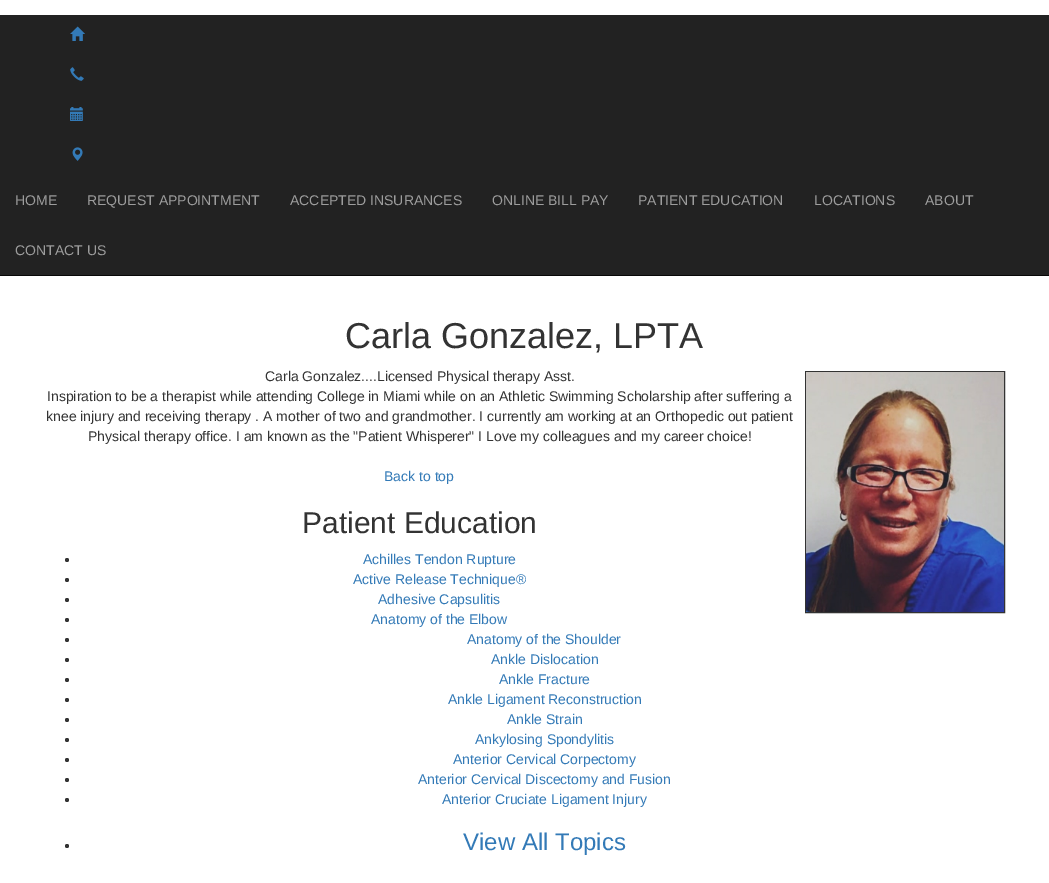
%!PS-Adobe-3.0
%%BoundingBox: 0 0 1049 883
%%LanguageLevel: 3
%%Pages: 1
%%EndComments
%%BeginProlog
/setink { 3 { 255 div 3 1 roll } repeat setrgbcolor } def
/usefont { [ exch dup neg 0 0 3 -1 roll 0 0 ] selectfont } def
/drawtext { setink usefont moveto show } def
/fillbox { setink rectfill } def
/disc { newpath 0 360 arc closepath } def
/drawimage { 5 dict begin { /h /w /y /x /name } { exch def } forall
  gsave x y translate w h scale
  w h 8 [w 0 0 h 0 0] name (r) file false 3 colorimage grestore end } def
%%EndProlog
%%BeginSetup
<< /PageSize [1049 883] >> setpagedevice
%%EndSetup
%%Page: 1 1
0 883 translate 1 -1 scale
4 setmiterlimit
0 0 1049 883 255 255 255 fillbox
0 15 1049 260 34 34 34 fillbox
0 275 1049 1 8 8 8 fillbox
(assets/img1.rgb) 70 26 15 15 drawimage
(assets/img2.rgb) 70 67 14 14 drawimage
(assets/img3.rgb) 70 107 13 14 drawimage
(assets/img4.rgb) 72 147 11 14 drawimage
(HOME) 15 205 /LiberationSans-Regular 14 157 157 157 drawtext
(REQUEST APPOINTMENT) 87 205 /LiberationSans-Regular 14 157 157 157 drawtext
(ACCEPTED INSURANCES) 290 205 /LiberationSans-Regular 14 157 157 157 drawtext
(ONLINE BILL PAY) 492 205 /LiberationSans-Regular 14 157 157 157 drawtext
(PATIENT EDUCATION) 638 205 /LiberationSans-Regular 14 157 157 157 drawtext
(LOCATIONS) 814 205 /LiberationSans-Regular 14 157 157 157 drawtext
(ABOUT) 925 205 /LiberationSans-Regular 14 157 157 157 drawtext
(CONTACT US) 15 255 /LiberationSans-Regular 14 157 157 157 drawtext
(Carla Gonzalez, LPTA) 345 348 /LiberationSans-Regular 36 51 51 51 drawtext
(Carla Gonzalez....Licensed Physical therapy Asst.) 265 381 /LiberationSans-Regular 14 51 51 51 drawtext
(Inspiration to be a therapist while attending College in Miami while on an Athletic Swimming Scholarship after suffering a) 47 401 /LiberationSans-Regular 14 51 51 51 drawtext
(knee injury and receiving therapy . A mother of two and grandmother. I currently am working at an Orthopedic out patient) 46 421 /LiberationSans-Regular 14 51 51 51 drawtext
(Physical therapy office. I am known as the "Patient Whisperer" I Love my colleagues and my career choice!) 88 441 /LiberationSans-Regular 14 51 51 51 drawtext
805.5 371.5 199 241 rectstroke
(assets/img5.rgb) 806 372 198 240 drawimage
(Back to top) 384 481 /LiberationSans-Regular 14 51 122 183 drawtext
(Patient Education) 302 533 /LiberationSans-Regular 30 51 51 51 drawtext
67 560 2 disc fill
(Achilles Tendon Rupture) 363 564 /LiberationSans-Regular 14 51 122 183 drawtext
51 51 51 setink
67 580 2 disc fill
(Active Release Technique®) 353 584 /LiberationSans-Regular 14 51 122 183 drawtext
51 51 51 setink
67 600 2 disc fill
(Adhesive Capsulitis) 378 604 /LiberationSans-Regular 14 51 122 183 drawtext
51 51 51 setink
67 620 2 disc fill
(Anatomy of the Elbow) 371 624 /LiberationSans-Regular 14 51 122 183 drawtext
51 51 51 setink
67 640 2 disc fill
(Anatomy of the Shoulder) 467 644 /LiberationSans-Regular 14 51 122 183 drawtext
51 51 51 setink
67 660 2 disc fill
(Ankle Dislocation) 491 664 /LiberationSans-Regular 14 51 122 183 drawtext
51 51 51 setink
67 680 2 disc fill
(Ankle Fracture) 499 684 /LiberationSans-Regular 14 51 122 183 drawtext
51 51 51 setink
67 700 2 disc fill
(Ankle Ligament Reconstruction) 448 704 /LiberationSans-Regular 14 51 122 183 drawtext
51 51 51 setink
67 720 2 disc fill
(Ankle Strain) 507 724 /LiberationSans-Regular 14 51 122 183 drawtext
51 51 51 setink
67 740 2 disc fill
(Ankylosing Spondylitis) 475 744 /LiberationSans-Regular 14 51 122 183 drawtext
51 51 51 setink
67 760 2 disc fill
(Anterior Cervical Corpectomy) 453 764 /LiberationSans-Regular 14 51 122 183 drawtext
51 51 51 setink
67 780 2 disc fill
(Anterior Cervical Discectomy and Fusion) 418 784 /LiberationSans-Regular 14 51 122 183 drawtext
51 51 51 setink
67 800 2 disc fill
(Anterior Cruciate Ligament Injury) 442 804 /LiberationSans-Regular 14 51 122 183 drawtext
51 51 51 setink
67 846 2 disc fill
(View All Topics) 463 850 /LiberationSans-Regular 24 51 122 183 drawtext
showpage
%%EOF
